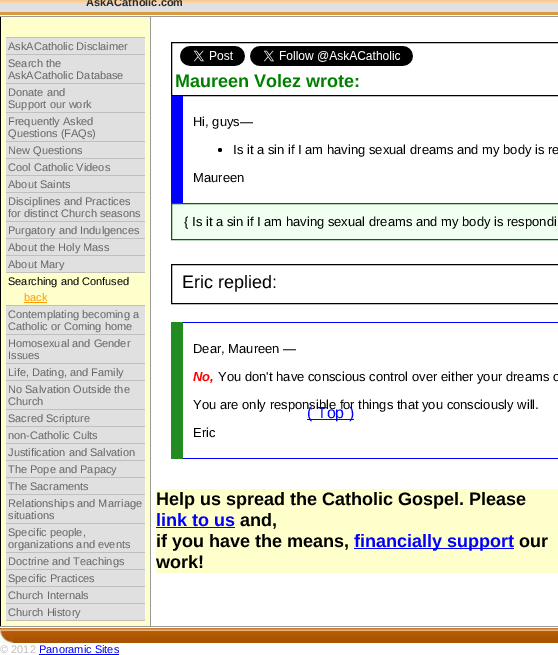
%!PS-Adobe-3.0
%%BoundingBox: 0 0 558 655
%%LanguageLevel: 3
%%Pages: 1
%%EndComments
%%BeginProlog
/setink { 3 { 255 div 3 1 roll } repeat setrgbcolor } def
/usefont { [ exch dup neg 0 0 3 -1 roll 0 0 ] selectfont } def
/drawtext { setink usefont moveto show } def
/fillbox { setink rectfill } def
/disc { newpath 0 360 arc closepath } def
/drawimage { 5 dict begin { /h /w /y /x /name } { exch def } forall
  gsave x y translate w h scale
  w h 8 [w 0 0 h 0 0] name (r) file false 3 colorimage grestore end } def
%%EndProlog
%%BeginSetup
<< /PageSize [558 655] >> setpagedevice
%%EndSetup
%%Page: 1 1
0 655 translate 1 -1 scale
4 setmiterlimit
0 0 558 655 255 255 255 fillbox
0 4 558 8 224 224 224 fillbox
(assets/img1.rgb) 0 0 558 4 drawimage
(AskACatholic.com) 86 6 /LiberationSans-Bold 11 46 45 44 drawtext
0 12 558 3 215 154 63 fillbox
0 16 558 1 153 153 153 fillbox
1 17 149 609 255 255 204 fillbox
0 17 1 609 0 0 0 fillbox
6 620 139 1 194 190 186 fillbox
6 38 139 16 224 224 224 fillbox
6 37 139 1 194 190 186 fillbox
(AskACatholic Disclaimer) 8 50 /LiberationSans-Regular 11 102 102 102 drawtext
6 55 139 28 224 224 224 fillbox
6 54 139 1 194 190 186 fillbox
(Search the) 8 67 /LiberationSans-Regular 11 102 102 102 drawtext
(AskACatholic Database) 8 79 /LiberationSans-Regular 11 102 102 102 drawtext
6 84 139 28 224 224 224 fillbox
6 83 139 1 194 190 186 fillbox
(Donate and) 8 96 /LiberationSans-Regular 11 102 102 102 drawtext
(Support our work) 8 108 /LiberationSans-Regular 11 102 102 102 drawtext
6 113 139 28 224 224 224 fillbox
6 112 139 1 194 190 186 fillbox
(Frequently Asked) 8 125 /LiberationSans-Regular 11 102 102 102 drawtext
(Questions \(FAQs\)) 8 137 /LiberationSans-Regular 11 102 102 102 drawtext
6 142 139 16 224 224 224 fillbox
6 141 139 1 194 190 186 fillbox
(New Questions) 8 154 /LiberationSans-Regular 11 102 102 102 drawtext
6 159 139 16 224 224 224 fillbox
6 158 139 1 194 190 186 fillbox
(Cool Catholic Videos) 8 171 /LiberationSans-Regular 11 102 102 102 drawtext
6 176 139 16 224 224 224 fillbox
6 175 139 1 194 190 186 fillbox
(About Saints) 8 188 /LiberationSans-Regular 11 102 102 102 drawtext
6 193 139 28 224 224 224 fillbox
6 192 139 1 194 190 186 fillbox
(Disciplines and Practices) 8 205 /LiberationSans-Regular 11 102 102 102 drawtext
(for distinct Church seasons) 8 217 /LiberationSans-Regular 11 102 102 102 drawtext
6 222 139 16 224 224 224 fillbox
6 221 139 1 194 190 186 fillbox
(Purgatory and Indulgences) 8 234 /LiberationSans-Regular 11 102 102 102 drawtext
6 239 139 16 224 224 224 fillbox
6 238 139 1 194 190 186 fillbox
(About the Holy Mass) 8 251 /LiberationSans-Regular 11 102 102 102 drawtext
6 256 139 16 224 224 224 fillbox
6 255 139 1 194 190 186 fillbox
(About Mary) 8 268 /LiberationSans-Regular 11 102 102 102 drawtext
6 272 139 1 194 190 186 fillbox
(Searching and Confused) 8 285 /LiberationSans-Regular 11 0 0 0 drawtext
(back) 24 301 /LiberationSans-Regular 11 255 153 0 drawtext
24 302 23 1 255 153 0 fillbox
6 306 139 28 224 224 224 fillbox
6 305 139 1 194 190 186 fillbox
(Contemplating becoming a) 8 318 /LiberationSans-Regular 11 102 102 102 drawtext
(Catholic or Coming home) 8 330 /LiberationSans-Regular 11 102 102 102 drawtext
6 335 139 28 224 224 224 fillbox
6 334 139 1 194 190 186 fillbox
(Homosexual and Gender) 8 347 /LiberationSans-Regular 11 102 102 102 drawtext
(Issues) 8 359 /LiberationSans-Regular 11 102 102 102 drawtext
6 364 139 16 224 224 224 fillbox
6 363 139 1 194 190 186 fillbox
(Life, Dating, and Family) 8 376 /LiberationSans-Regular 11 102 102 102 drawtext
6 381 139 28 224 224 224 fillbox
6 380 139 1 194 190 186 fillbox
(No Salvation Outside the) 8 393 /LiberationSans-Regular 11 102 102 102 drawtext
(Church) 8 405 /LiberationSans-Regular 11 102 102 102 drawtext
6 410 139 16 224 224 224 fillbox
6 409 139 1 194 190 186 fillbox
(Sacred Scripture) 8 422 /LiberationSans-Regular 11 102 102 102 drawtext
6 427 139 16 224 224 224 fillbox
6 426 139 1 194 190 186 fillbox
(non-Catholic Cults) 8 439 /LiberationSans-Regular 11 102 102 102 drawtext
6 444 139 16 224 224 224 fillbox
6 443 139 1 194 190 186 fillbox
(Justification and Salvation) 8 456 /LiberationSans-Regular 11 102 102 102 drawtext
6 461 139 16 224 224 224 fillbox
6 460 139 1 194 190 186 fillbox
(The Pope and Papacy) 8 473 /LiberationSans-Regular 11 102 102 102 drawtext
6 478 139 16 224 224 224 fillbox
6 477 139 1 194 190 186 fillbox
(The Sacraments) 8 490 /LiberationSans-Regular 11 102 102 102 drawtext
6 495 139 28 224 224 224 fillbox
6 494 139 1 194 190 186 fillbox
(Relationships and Marriage) 8 507 /LiberationSans-Regular 11 102 102 102 drawtext
(situations) 8 519 /LiberationSans-Regular 11 102 102 102 drawtext
6 524 139 28 224 224 224 fillbox
6 523 139 1 194 190 186 fillbox
(Specific people,) 8 536 /LiberationSans-Regular 11 102 102 102 drawtext
(organizations and events) 8 548 /LiberationSans-Regular 11 102 102 102 drawtext
6 553 139 16 224 224 224 fillbox
6 552 139 1 194 190 186 fillbox
(Doctrine and Teachings) 8 565 /LiberationSans-Regular 11 102 102 102 drawtext
6 570 139 16 224 224 224 fillbox
6 569 139 1 194 190 186 fillbox
(Specific Practices) 8 582 /LiberationSans-Regular 11 102 102 102 drawtext
6 587 139 16 224 224 224 fillbox
6 586 139 1 194 190 186 fillbox
(Church Internals) 8 599 /LiberationSans-Regular 11 102 102 102 drawtext
6 604 139 16 224 224 224 fillbox
6 603 139 1 194 190 186 fillbox
(Church History) 8 616 /LiberationSans-Regular 11 102 102 102 drawtext
150 17 1 609 153 153 153 fillbox
0 0 0 setink
171.5 42.5 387 53 rectstroke
(assets/img2.rgb) 180 46 65 20 drawimage
(assets/img3.rgb) 250 46 163 20 drawimage
(Maureen Volez wrote:) 175 87 /LiberationSans-Bold 18 0 128 0 drawtext
171 96 12 107 0 0 255 fillbox
(Hi, guys—) 193 126 /LiberationSans-Regular 13 0 0 0 drawtext
220 150 2 disc fill
(Is it a sin if I am having sexual dreams and my body is re) 233 154 /LiberationSans-Regular 13 0 0 0 drawtext
(Maureen) 193 182 /LiberationSans-Regular 13 0 0 0 drawtext
240 255 240 setink
171.5 203.5 moveto 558.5 203.5 lineto 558.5 239.5 lineto 171.5 239.5 lineto closepath gsave fill grestore
0 100 0 setink
stroke
({ Is it a sin if I am having sexual dreams and my body is respondi) 184 226 /LiberationSans-Regular 13 0 0 0 drawtext
171.5 264.5 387 39 rectstroke
(Eric replied:) 182 288 /LiberationSans-Regular 18 0 0 0 drawtext
171 322 12 137 34 139 34 fillbox
183 322 375 1 0 0 255 fillbox
183 458 375 1 0 0 255 fillbox
(Dear, Maureen —) 193 353 /LiberationSans-Regular 13 0 0 0 drawtext
(No,) 193 381 /LiberationSans-BoldItalic 13 255 0 0 drawtext
(You don't have conscious control over either your dreams o) 218 381 /LiberationSans-Regular 13 0 0 0 drawtext
(You are only responsible for things that you consciously will.) 193 409 /LiberationSans-Regular 13 0 0 0 drawtext
(Eric) 193 437 /LiberationSans-Regular 13 0 0 0 drawtext
156 489 402 84 255 255 204 fillbox
(Help us spread the Catholic Gospel. Please) 156 505 /LiberationSans-Bold 18 0 0 0 drawtext
(link to us) 156 526 /LiberationSans-Bold 18 0 0 255 drawtext
156 527 79 1 0 0 255 fillbox
(and,) 240 526 /LiberationSans-Bold 18 0 0 0 drawtext
(if you have the means,) 156 547 /LiberationSans-Bold 18 0 0 0 drawtext
354 548 160 1 0 0 255 fillbox
(financially support) 354 547 /LiberationSans-Bold 18 0 0 255 drawtext
(our) 519 547 /LiberationSans-Bold 18 0 0 0 drawtext
(work!) 156 568 /LiberationSans-Bold 18 0 0 0 drawtext
0 626 558 1 153 153 153 fillbox
307 419 47 1 0 0 255 fillbox
(\( Top \)) 307 418 /LiberationSans-Regular 16 0 0 255 drawtext
(assets/img4.rgb) 13 628 545 15 drawimage
(assets/img5.rgb) 0 628 13 15 drawimage
(© 2012) 0 653 /LiberationSans-Regular 11 194 190 186 drawtext
(Panoramic Sites) 39 653 /LiberationSans-Regular 11 0 0 255 drawtext
39 654 80 1 0 0 255 fillbox
showpage
%%EOF
